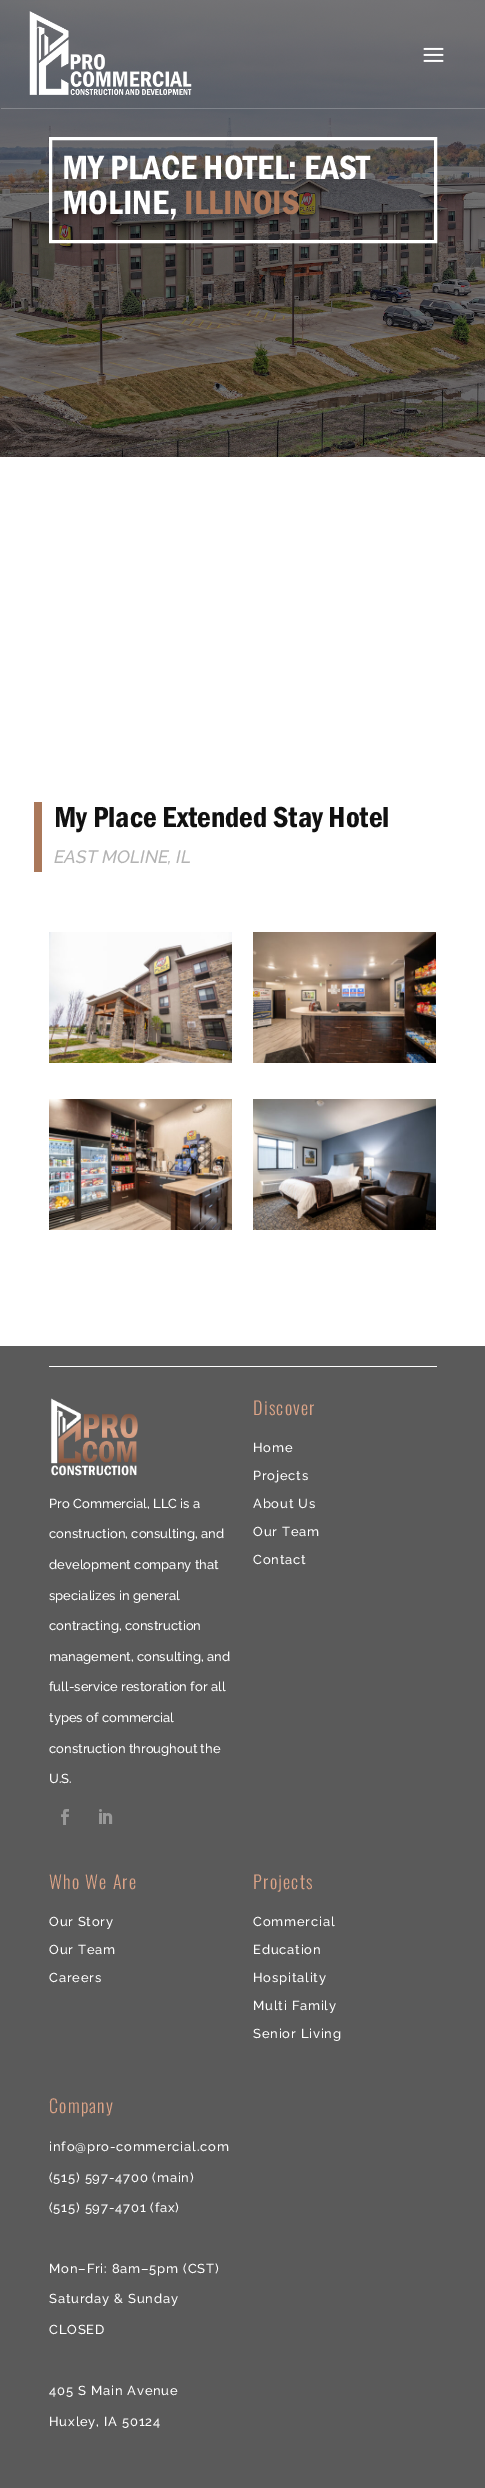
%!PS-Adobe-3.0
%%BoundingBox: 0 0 485 2488
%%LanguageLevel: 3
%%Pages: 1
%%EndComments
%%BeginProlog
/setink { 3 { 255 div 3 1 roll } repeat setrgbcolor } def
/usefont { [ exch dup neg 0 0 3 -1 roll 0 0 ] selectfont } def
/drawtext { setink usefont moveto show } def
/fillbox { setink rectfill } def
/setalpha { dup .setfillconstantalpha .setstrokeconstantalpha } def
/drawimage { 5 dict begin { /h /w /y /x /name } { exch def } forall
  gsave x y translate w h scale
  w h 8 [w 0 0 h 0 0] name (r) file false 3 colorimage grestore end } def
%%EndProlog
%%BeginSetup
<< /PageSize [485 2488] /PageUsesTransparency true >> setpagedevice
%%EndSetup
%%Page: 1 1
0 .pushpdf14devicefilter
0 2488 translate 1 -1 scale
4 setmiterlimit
0 0 485 2488 255 255 255 fillbox
(assets/img3.rgb) 0 0 485 457 drawimage
0.23 setalpha
1 108 484 1 255 255 255 fillbox
1 setalpha
(assets/img1.rgb) 29 11 163 84 drawimage
(assets/img2.rgb) 423 47 21 15 drawimage
3 setlinewidth
50.5 138.5 385 103 rectstroke
(MY PLACE HOTEL: EAST) 62 179 /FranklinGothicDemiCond-Regular 35 255 255 255 drawtext
(MOLINE,) 62 214 /FranklinGothicDemiCond-Regular 35 255 255 255 drawtext
(ILLINOIS) 184 214 /FranklinGothicDemiCond-Regular 35 173 120 90 drawtext
34 802 8 70 170 120 90 fillbox
(My Place Extended Stay Hotel) 54 827 /FranklinGothicDemiCond-Regular 30 17 17 17 drawtext
(EAST MOLINE, IL) 54 863 /Raleway-MediumItalic 18 179 179 179 drawtext
(assets/img4.rgb) 49 932 183 131 drawimage
(assets/img5.rgb) 253 932 183 131 drawimage
(assets/img6.rgb) 49 1099 183 131 drawimage
(assets/img7.rgb) 253 1099 183 131 drawimage
0 1346 485 1142 90 90 90 fillbox
49 1366 388 1 255 255 255 fillbox
(assets/img8.rgb) 51 1398 87 78 drawimage
(Pro Commercial, LLC is a) 49 1508 /Raleway-Medium 13 255 255 255 drawtext
(construction, consulting, and) 49 1538 /Raleway-Medium 13 255 255 255 drawtext
(development company that) 49 1569 /Raleway-Medium 13 255 255 255 drawtext
(specializes in general) 49 1600 /Raleway-Medium 13 255 255 255 drawtext
(contracting, construction) 49 1630 /Raleway-Medium 13 255 255 255 drawtext
(management, consulting, and) 49 1661 /Raleway-Medium 13 255 255 255 drawtext
(full-service restoration for all) 49 1691 /Raleway-Medium 13 255 255 255 drawtext
(types of commercial) 49 1722 /Raleway-Medium 13 255 255 255 drawtext
(construction throughout the) 49 1753 /Raleway-Medium 13 255 255 255 drawtext
(U.S.) 49 1783 /Raleway-Medium 13 255 255 255 drawtext
(assets/img9.rgb) 61 1809 8 16 drawimage
(assets/img10.rgb) 99 1809 14 15 drawimage
/Oswald-Light 18 usefont
221 164 135 setink
253 1415 moveto 1.25 0 (Discover) ashow
/Raleway-Medium 13 usefont
255 255 255 setink
253 1452 moveto 0.8 0 (Home) ashow
253 1480 moveto 0.8 0 (Projects) ashow
253 1508 moveto 0.8 0 (About Us) ashow
253 1536 moveto 0.8 0 (Our Team) ashow
253 1564 moveto 0.8 0 (Contact) ashow
/Oswald-Light 18 usefont
221 164 135 setink
49 1889 moveto 1.25 0 (Who We Are) ashow
/Raleway-Medium 13 usefont
255 255 255 setink
49 1926 moveto 0.8 0 (Our Story) ashow
49 1954 moveto 0.8 0 (Our Team) ashow
49 1982 moveto 0.8 0 (Careers) ashow
/Oswald-Light 18 usefont
221 164 135 setink
253 1889 moveto 1.25 0 (Projects) ashow
/Raleway-Medium 13 usefont
255 255 255 setink
253 1926 moveto 0.8 0 (Commercial) ashow
253 1954 moveto 0.8 0 (Education) ashow
253 1982 moveto 0.8 0 (Hospitality) ashow
253 2010 moveto 0.8 0 (Multi Family) ashow
253 2038 moveto 0.8 0 (Senior Living) ashow
/Oswald-Light 18 usefont
221 164 135 setink
49 2113 moveto 1.25 0 (Company) ashow
/Raleway-Medium 13 usefont
255 255 255 setink
49 2151 moveto 0.8 0 (info@pro-commercial.com) ashow
49 2182 moveto 0.8 0 (\(515\) 597-4700 \(main\)) ashow
49 2212 moveto 0.8 0 (\(515\) 597-4701 \(fax\)) ashow
49 2273 moveto 0.8 0 (Mon–Fri: 8am–5pm \(CST\)) ashow
49 2303 moveto 0.8 0 (Saturday & Sunday) ashow
49 2334 moveto 0.8 0 (CLOSED) ashow
49 2395 moveto 0.8 0 (405 S Main Avenue) ashow
49 2426 moveto 0.8 0 (Huxley, IA 50124) ashow
.poppdf14devicefilter showpage
%%EOF
